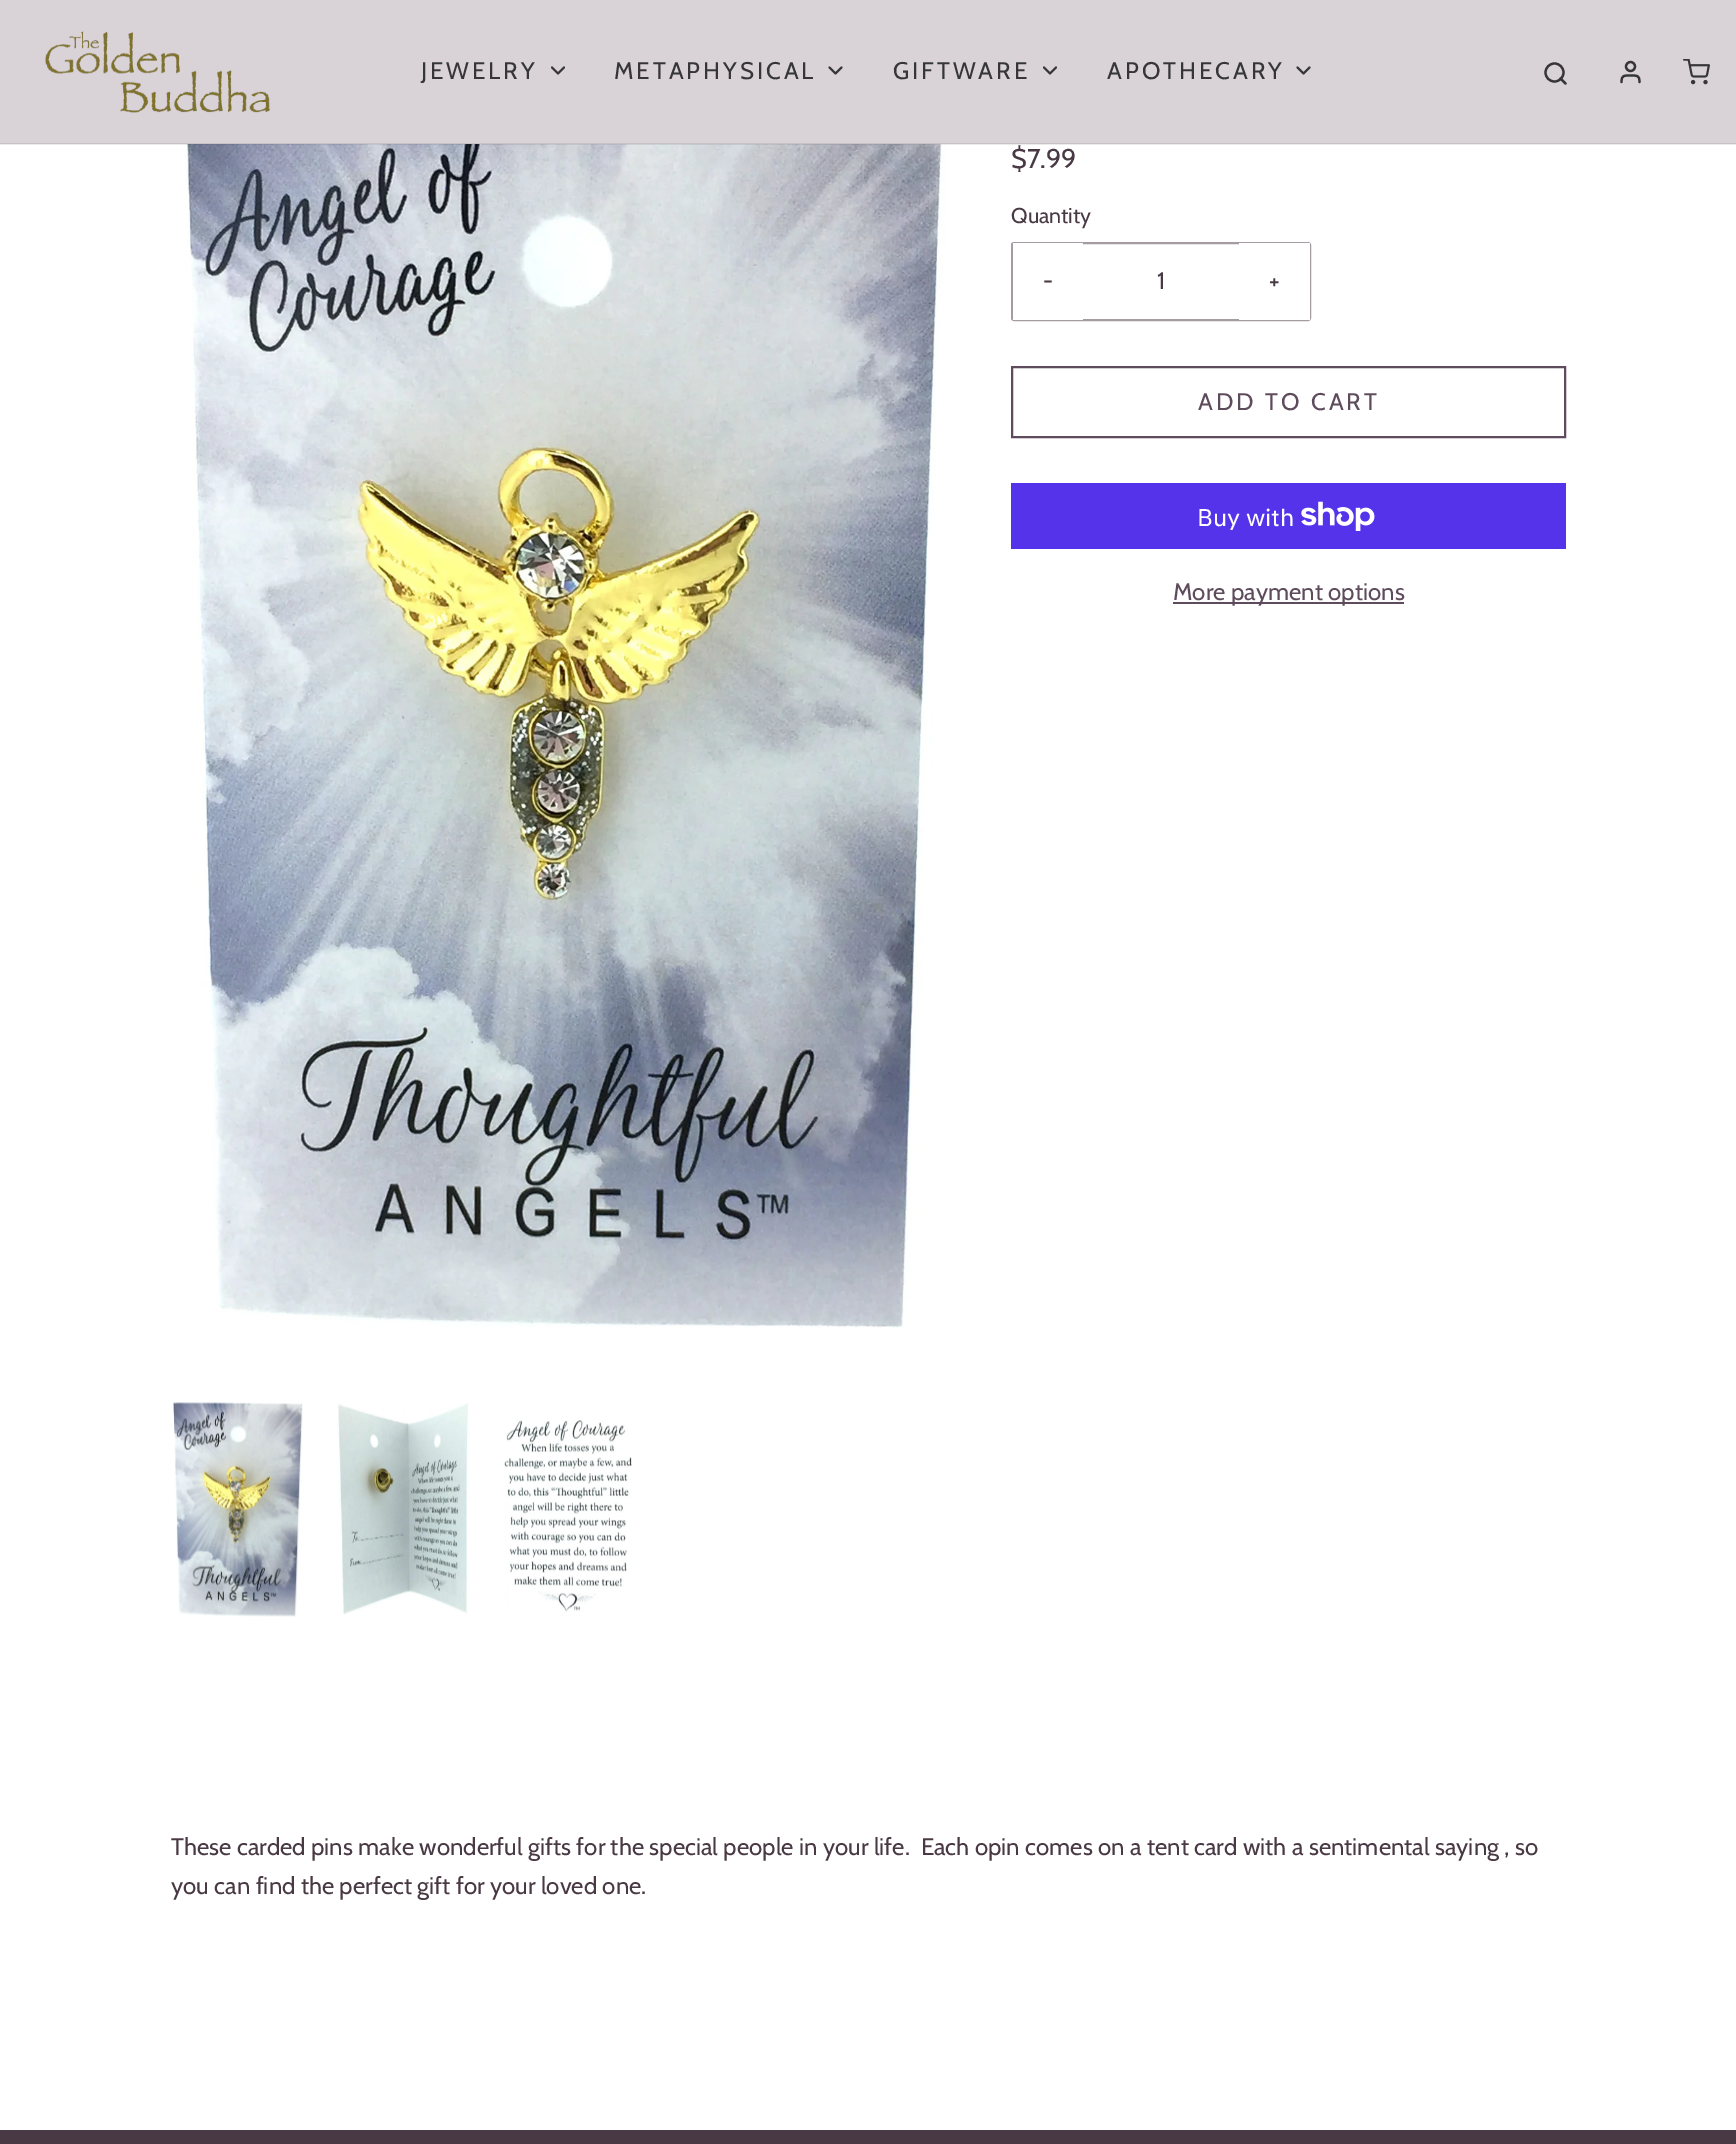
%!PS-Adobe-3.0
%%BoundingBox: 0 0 1736 2144
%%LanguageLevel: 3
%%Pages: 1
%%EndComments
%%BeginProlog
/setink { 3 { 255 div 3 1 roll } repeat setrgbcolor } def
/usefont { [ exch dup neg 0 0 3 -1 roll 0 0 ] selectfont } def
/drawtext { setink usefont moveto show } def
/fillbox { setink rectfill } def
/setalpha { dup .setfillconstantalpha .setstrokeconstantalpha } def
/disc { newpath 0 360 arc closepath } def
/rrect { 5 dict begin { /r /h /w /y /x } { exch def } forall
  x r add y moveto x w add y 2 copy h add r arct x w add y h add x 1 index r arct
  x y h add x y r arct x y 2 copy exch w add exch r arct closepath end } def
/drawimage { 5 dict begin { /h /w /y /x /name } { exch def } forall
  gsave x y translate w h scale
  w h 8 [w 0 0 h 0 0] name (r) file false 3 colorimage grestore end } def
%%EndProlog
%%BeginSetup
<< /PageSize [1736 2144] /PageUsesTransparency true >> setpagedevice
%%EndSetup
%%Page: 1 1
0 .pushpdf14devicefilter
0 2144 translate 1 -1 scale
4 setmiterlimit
0 0 1736 2144 255 255 255 fillbox
0 0 1736 144 217 210 214 fillbox
(assets/img3.rgb) 184 144 762 1184 drawimage
0.1 setalpha
0 143 1736 2 54 54 54 fillbox
1 setalpha
(assets/img1.rgb) 45 31 225 82 drawimage
/Cabin-Regular 24 usefont
421 79 moveto 3 0 (JEWELRY) ashow
2 setlinewidth
1 setlinecap
1 setlinejoin
552 67.5 moveto 558 73.5 lineto 564 67.5 lineto stroke
614 79 moveto 3 0 (METAPHYSICAL) ashow
829.5 67.5 moveto 835.5 73.5 lineto 841.5 67.5 lineto stroke
893 79 moveto 3 0 (GIFTWARE) ashow
1044 67.5 moveto 1050 73.5 lineto 1056 67.5 lineto stroke
1107 79 moveto 3 0 (APOTHECARY) ashow
1297.5 67.5 moveto 1303.5 73.5 lineto 1309.5 67.5 lineto stroke
2.2 setlinewidth
0 setlinecap
0 setlinejoin
1554.5 72.5 9 disc stroke
1 setlinecap
1 setlinejoin
1565.5 83.5 moveto 1560.5 78.5 lineto stroke
0 setlinecap
0 setlinejoin
1630.5 66.5 4.5 disc stroke
1 setlinecap
1 setlinejoin
1639.5 82 moveto 1639.5 75 1637 75.5 1630.5 75.5 curveto 1624 75.5 1621.5 75 1621.5 82 curveto stroke
(assets/img2.rgb) 1683 59 27 26 drawimage
(assets/img4.rgb) 173 1402 130 215 drawimage
(assets/img5.rgb) 337 1403 132 212 drawimage
(assets/img6.rgb) 504 1420 128 192 drawimage
($7.99) 1011 168 /Cabin-Regular 27 73 57 68 drawtext
(Quantity) 1011 223 /Cabin-Regular 21.5 73 57 68 drawtext
164 156 162 setink
2 setlinewidth
0 setlinecap
0 setlinejoin
1012 243 298 77 2 rrect stroke
1013 243 70 77 255 255 255 fillbox
(-) 1043 289 /Cabin-Regular 24 73 57 68 drawtext
(1) 1157 289 /Cabin-Regular 24 73 57 68 drawtext
1239 243 71 77 255 255 255 fillbox
(+) 1269 289 /Cabin-Regular 24 73 57 68 drawtext
94 75 92 setink
1012 367 553 70 rectstroke
1198 410 moveto 3 0 (ADD TO CART) ashow
1011 483 555 66 84 51 235 fillbox
(Buy with) 1197 526 /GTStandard-Regular 24 255 255 255 drawtext
(assets/img7.rgb) 1301 501 74 30 drawimage
1173 602 231 2 94 75 92 fillbox
(More payment options) 1173 600 /Cabin-Regular 24 94 75 92 drawtext
(These carded pins make wonderful gifts for the special people in your life.  Each opin comes on a tent card with a sentimental saying , so) 171 1855 /Cabin-Regular 24 73 57 68 drawtext
(you can find the perfect gift for your loved one.) 171 1894 /Cabin-Regular 24 73 57 68 drawtext
0 2130 1736 14 73 57 68 fillbox
.poppdf14devicefilter showpage
%%EOF
